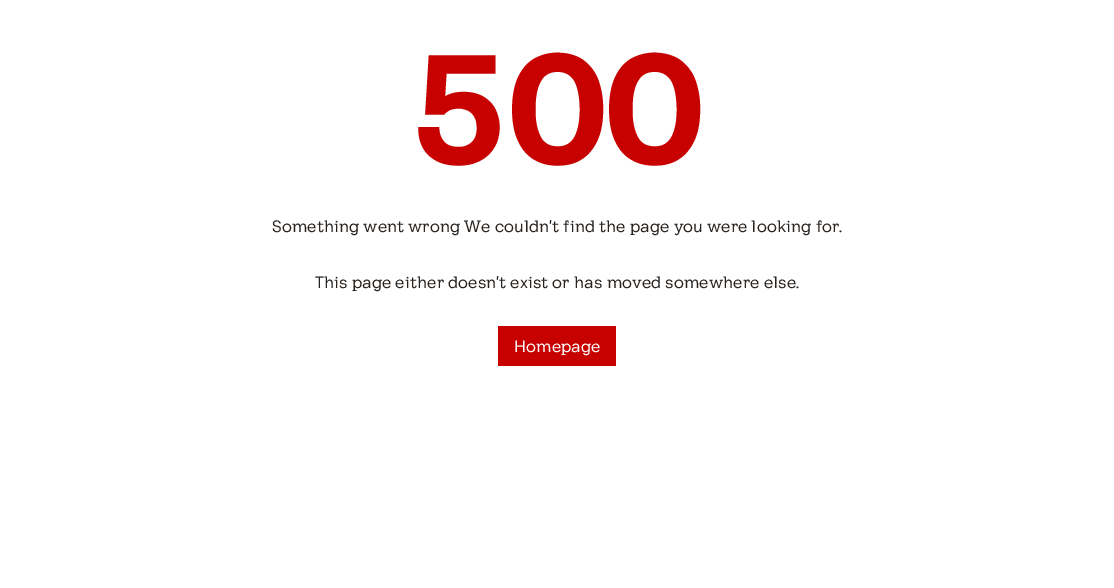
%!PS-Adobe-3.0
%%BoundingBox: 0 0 1114 588
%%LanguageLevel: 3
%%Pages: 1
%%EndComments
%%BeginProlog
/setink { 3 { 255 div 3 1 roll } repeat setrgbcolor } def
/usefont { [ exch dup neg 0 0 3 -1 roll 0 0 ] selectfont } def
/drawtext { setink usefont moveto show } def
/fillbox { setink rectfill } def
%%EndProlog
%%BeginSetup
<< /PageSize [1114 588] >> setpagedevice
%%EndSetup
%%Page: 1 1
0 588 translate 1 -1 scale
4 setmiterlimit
0 0 1114 588 255 255 255 fillbox
(500) 411 163 /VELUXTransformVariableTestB-Bold 150 199 0 0 drawtext
(Something went wrong We couldn't find the page you were looking for.) 272 232 /VELUXTransformVariableTestB-Regular 16 40 35 31 drawtext
(This page either doesn't exist or has moved somewhere else.) 315 288 /VELUXTransformVariableTestB-Regular 16 40 35 31 drawtext
498 326 118 40 199 0 0 fillbox
(Homepage) 514 352 /VELUXTransformVariableTestB-Regular 16 255 255 255 drawtext
showpage
%%EOF
